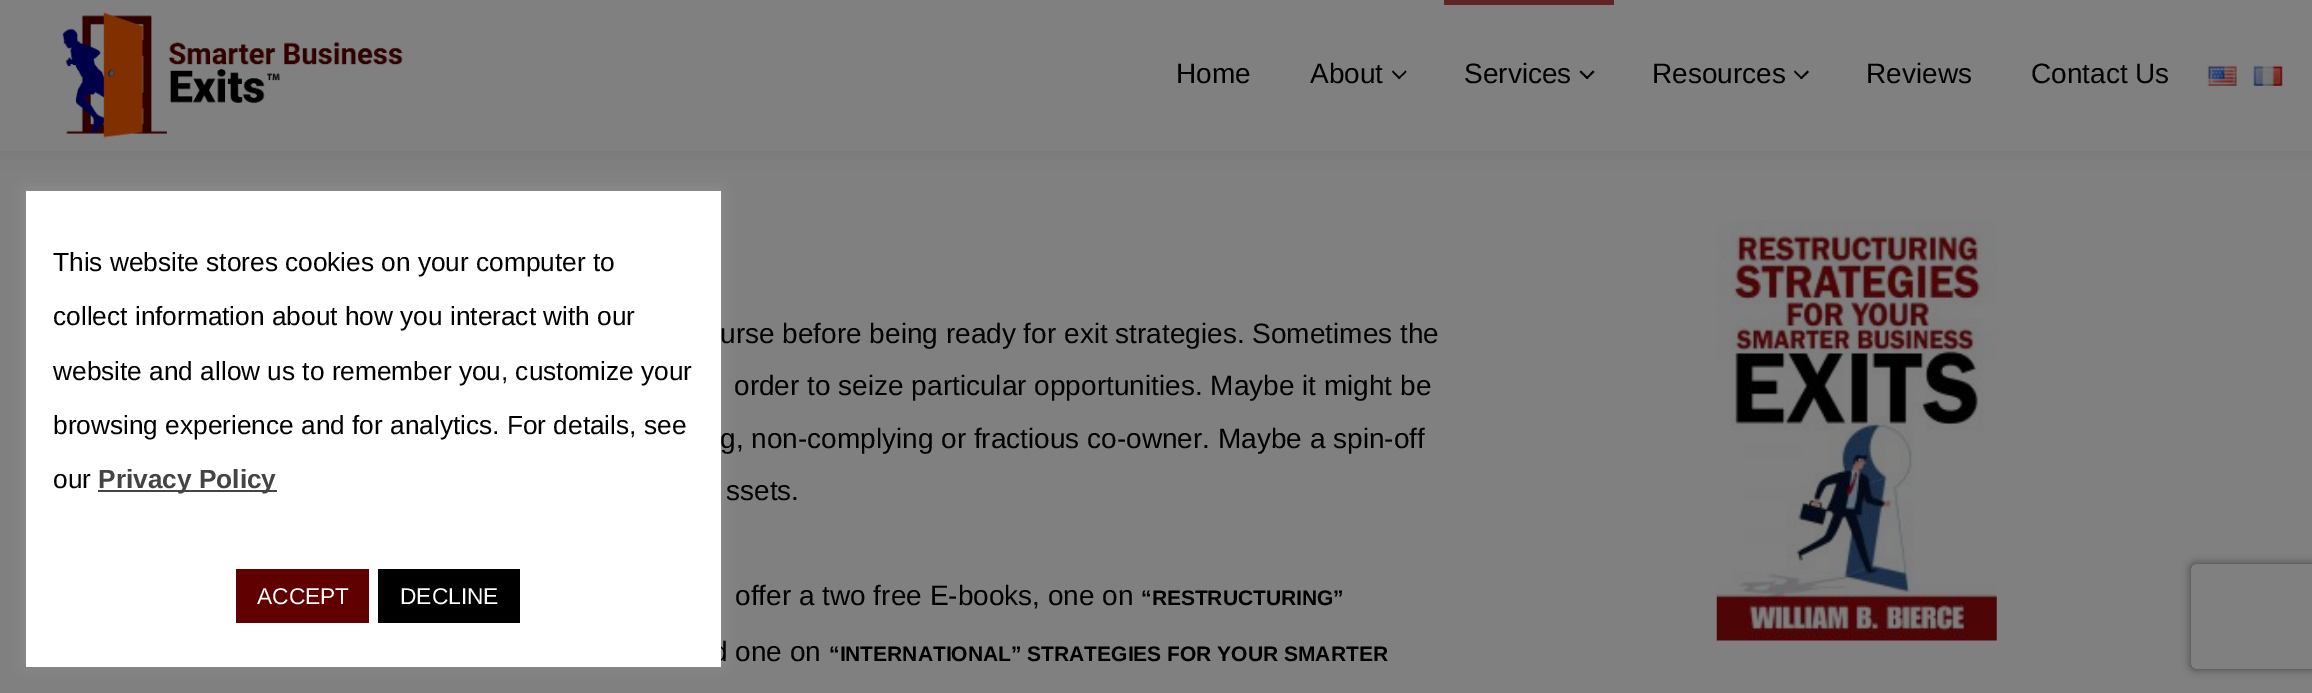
%!PS-Adobe-3.0
%%BoundingBox: 0 0 2312 693
%%LanguageLevel: 3
%%Pages: 1
%%EndComments
%%BeginProlog
/setink { 3 { 255 div 3 1 roll } repeat setrgbcolor } def
/usefont { [ exch dup neg 0 0 3 -1 roll 0 0 ] selectfont } def
/drawtext { setink usefont moveto show } def
/fillbox { setink rectfill } def
/setalpha { dup .setfillconstantalpha .setstrokeconstantalpha } def
/rrect { 5 dict begin { /r /h /w /y /x } { exch def } forall
  x r add y moveto x w add y 2 copy h add r arct x w add y h add x 1 index r arct
  x y h add x y r arct x y 2 copy exch w add exch r arct closepath end } def
/softshadow { 12 dict begin { /a /b /q /h /w /y /x } { exch def } forall gsave /was 0 def
  9 -2 -9 { dup b mul 4 div /e exch def 1 sub .425 mul 2.718 exch exp 1 add a .99 .min exch div /now exch def
    1 1 now sub 1 was sub div sub setalpha /was now def
    w h .min e 2 mul add 0 gt { x e sub y e sub w e 2 mul add h e 2 mul add
      q e add b .6 mul add w h .min 2 div e add .min 0 .max rrect fill } if } for grestore end } def
/drawimage { 5 dict begin { /h /w /y /x /name } { exch def } forall
  gsave x y translate w h scale
  w h 8 [w 0 0 h 0 0] name (r) file false 3 colorimage grestore end } def
%%EndProlog
%%BeginSetup
<< /PageSize [2312 693] /PageUsesTransparency true >> setpagedevice
%%EndSetup
%%Page: 1 1
0 .pushpdf14devicefilter
0 693 translate 1 -1 scale
4 setmiterlimit
0 0 2312 693 128 128 128 fillbox
0 0 0 setink
2 0 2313 151 0 9 0.1 softshadow
0 0 2312 151 128 128 128 fillbox
(assets/img1.rgb) 62 12 341 126 drawimage
1444 0 170 5 97 36 36 fillbox
(Home) 1176 83 /LiberationSans-Regular 28 0 0 0 drawtext
(About) 1310 83 /LiberationSans-Regular 28 0 0 0 drawtext
1 1 1 setink
1399 79 moveto 1392 72 lineto 1393 70.5 lineto 1400.5 78 lineto closepath fill
1399 79 moveto 1398 78 lineto 1405.5 70.5 lineto 1406.5 72 lineto closepath fill
(Services) 1464 83 /LiberationSans-Regular 28 0 0 0 drawtext
1 1 1 setink
1587 79 moveto 1579.5 72 lineto 1581 70.5 lineto 1588.5 78 lineto closepath fill
1587 79 moveto 1586 78 lineto 1593 70.5 lineto 1594.5 72 lineto closepath fill
(Resources) 1652 83 /LiberationSans-Regular 28 0 0 0 drawtext
1 1 1 setink
1801.5 79 moveto 1794 72 lineto 1795 70.5 lineto 1802.5 78 lineto closepath fill
1801.5 79 moveto 1800 78 lineto 1807.5 70.5 lineto 1809 72 lineto closepath fill
(Reviews) 1866 83 /LiberationSans-Regular 28 0 0 0 drawtext
(Contact Us) 2031 83 /LiberationSans-Regular 28 0 0 0 drawtext
(assets/img2.rgb) 2207 65 30 21 drawimage
(assets/img3.rgb) 2253 65 30 21 drawimage
172 171 171 setink
26 189 695 476 0 9 0.3 softshadow
(g, non-complying or fractious co-owner. Maybe a spin-off) 720 448 /LiberationSans-Regular 28 0 0 0 drawtext
(d one on) 712 661 /LiberationSans-Regular 28 0 0 0 drawtext
26 191 695 476 255 255 255 fillbox
(This website stores cookies on your computer to) 53 271 /LiberationSans-Regular 26.25 0 0 0 drawtext
(collect information about how you interact with our) 53 325 /LiberationSans-Regular 26.25 0 0 0 drawtext
(website and allow us to remember you, customize your) 53 380 /LiberationSans-Regular 26.25 0 0 0 drawtext
(browsing experience and for analytics. For details, see) 53 434 /LiberationSans-Regular 26.25 0 0 0 drawtext
(our) 53 488 /LiberationSans-Regular 26.25 0 0 0 drawtext
98 490 179 2 68 68 68 fillbox
(Privacy Policy) 98 488 /LiberationSans-Bold 26.25 68 68 68 drawtext
236 569 133 54 97 0 0 fillbox
(ACCEPT) 257 604 /LiberationSans-Regular 22.75 255 255 255 drawtext
378 569 142 54 0 0 0 fillbox
(DECLINE) 400 604 /LiberationSans-Regular 22.75 255 255 255 drawtext
(urse before being ready for exit strategies. Sometimes the) 720 343 /LiberationSans-Regular 28 0 0 0 drawtext
(order to seize particular opportunities. Maybe it might be) 734 395 /LiberationSans-Regular 28 0 0 0 drawtext
(ssets.) 726 500 /LiberationSans-Regular 28 0 0 0 drawtext
(offer a two free E-books, one on) 735 605 /LiberationSans-Regular 28 0 0 0 drawtext
(“RESTRUCTURING”) 1141 605 /LiberationSans-Bold 21 0 0 0 drawtext
(“INTERNATIONAL” STRATEGIES FOR YOUR SMARTER) 829 661 /LiberationSans-Bold 21 0 0 0 drawtext
(assets/img4.rgb) 1716 220 281 421 drawimage
gsave
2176 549 moveto 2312 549 lineto 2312 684 lineto 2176 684 lineto closepath 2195 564 moveto 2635 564 lineto 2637 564 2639 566 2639 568 curveto 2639 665 lineto 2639 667 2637 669 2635 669 curveto 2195 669 lineto 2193 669 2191 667 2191 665 curveto 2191 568 lineto 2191 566 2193 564 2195 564 curveto closepath eoclip newpath
64 64 64 setink
2191 564 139 105 4 4.5 1 softshadow
grestore
.poppdf14devicefilter showpage
%%EOF
